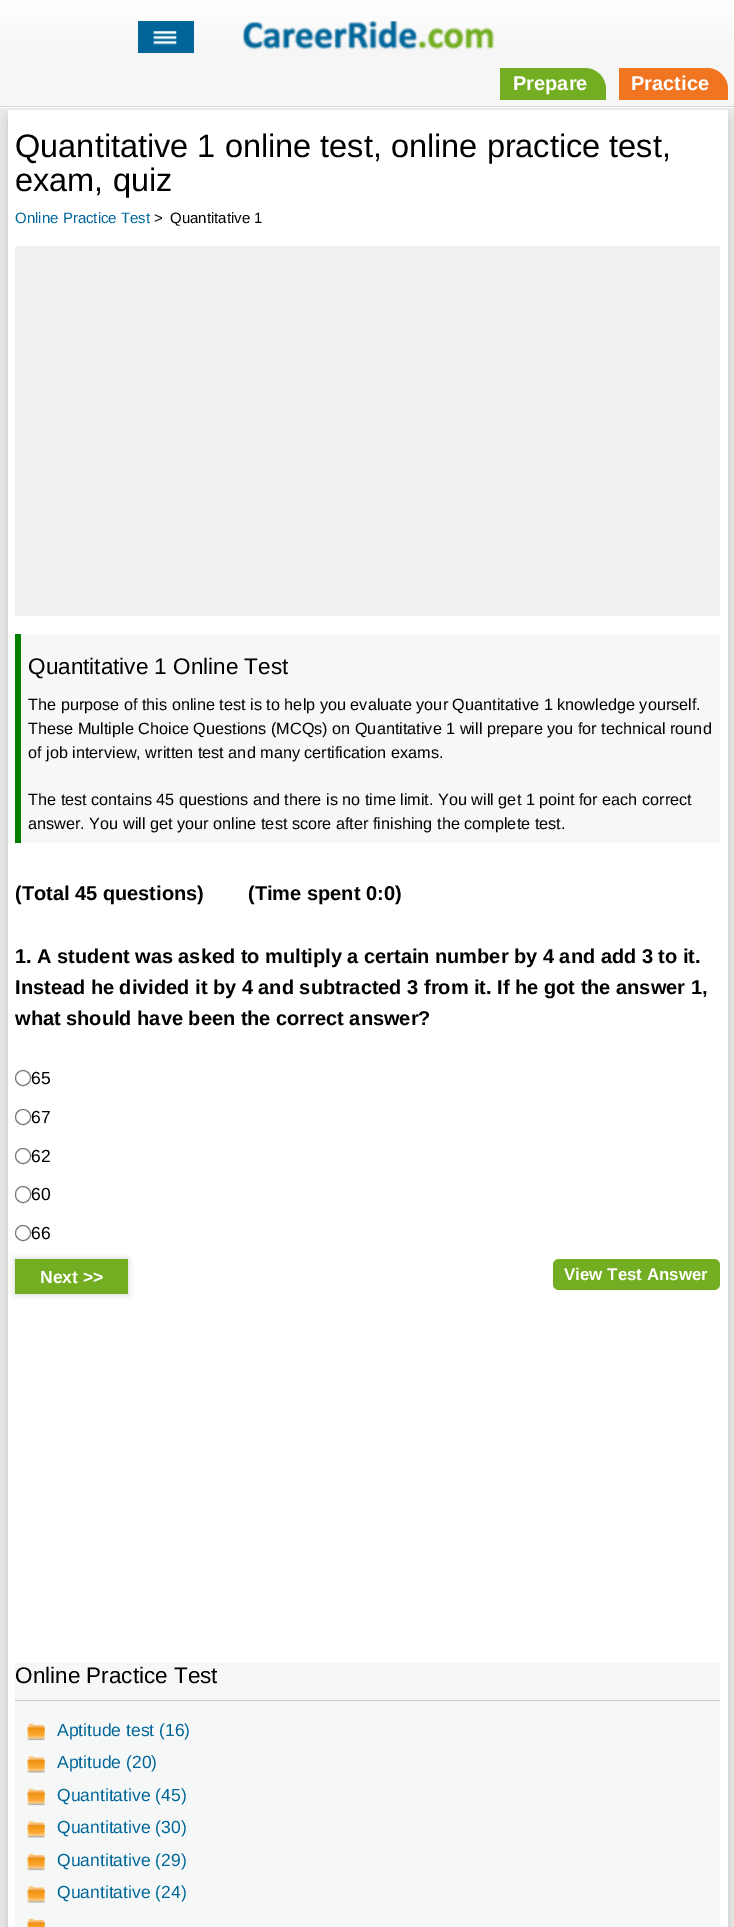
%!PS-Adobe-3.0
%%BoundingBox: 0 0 734 1927
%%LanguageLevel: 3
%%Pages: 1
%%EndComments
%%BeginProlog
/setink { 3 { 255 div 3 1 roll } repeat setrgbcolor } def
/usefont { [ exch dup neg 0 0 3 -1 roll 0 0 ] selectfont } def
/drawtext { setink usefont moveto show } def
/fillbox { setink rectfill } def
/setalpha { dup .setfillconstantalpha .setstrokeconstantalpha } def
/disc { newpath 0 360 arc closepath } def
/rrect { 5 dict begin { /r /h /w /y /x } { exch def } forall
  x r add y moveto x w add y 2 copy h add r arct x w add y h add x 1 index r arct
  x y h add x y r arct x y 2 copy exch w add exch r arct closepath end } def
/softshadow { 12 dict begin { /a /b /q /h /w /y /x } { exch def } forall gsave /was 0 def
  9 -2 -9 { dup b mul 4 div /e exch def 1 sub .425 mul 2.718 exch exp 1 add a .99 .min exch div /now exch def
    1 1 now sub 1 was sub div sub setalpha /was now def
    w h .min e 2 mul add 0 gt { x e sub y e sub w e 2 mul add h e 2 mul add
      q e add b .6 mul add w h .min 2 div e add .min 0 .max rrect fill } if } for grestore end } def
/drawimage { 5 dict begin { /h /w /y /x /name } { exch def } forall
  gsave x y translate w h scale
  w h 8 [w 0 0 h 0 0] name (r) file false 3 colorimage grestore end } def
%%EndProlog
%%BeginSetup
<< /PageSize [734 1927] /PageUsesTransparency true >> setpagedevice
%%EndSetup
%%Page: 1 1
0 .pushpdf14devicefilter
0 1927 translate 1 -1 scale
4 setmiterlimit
0 0 734 1927 241 241 241 fillbox
0 0 0 setink
8 118 720 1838 0 9.5 0.2 softshadow
gsave 0 0 moveto 734 0 lineto 734 106 lineto 0 106 lineto closepath clip newpath
<< /ShadingType 2 /ColorSpace /DeviceRGB /Coords [368 106 368 0] /Extend [true true] /Function << /FunctionType 3 /Domain [0 1] /Functions [<< /FunctionType 2 /Domain [0 1] /C0 [0.965 0.965 0.965] /C1 [0.965 0.965 0.965] /N 1 >> << /FunctionType 2 /Domain [0 1] /C0 [0.965 0.965 0.965] /C1 [1 1 1] /N 1 >>] /Bounds [0.55] /Encode [0 1 0 1] >> >> shfill grestore
gsave 0 107 moveto 734 107 lineto 734 108 lineto 0 108 lineto closepath clip newpath
<< /ShadingType 2 /ColorSpace /DeviceRGB /Coords [368 213 368 106] /Extend [true true] /Function << /FunctionType 3 /Domain [0 1] /Functions [<< /FunctionType 2 /Domain [0 1] /C0 [0.965 0.965 0.965] /C1 [0.965 0.965 0.965] /N 1 >> << /FunctionType 2 /Domain [0 1] /C0 [0.965 0.965 0.965] /C1 [1 1 1] /N 1 >>] /Bounds [0.55] /Encode [0 1 0 1] >> >> shfill grestore
0 106 734 1 214 214 214 fillbox
138 21 56 32 0 102 153 fillbox
(assets/img1.rgb) 153 31 24 14 drawimage
(assets/img2.rgb) 243 21 252 29 drawimage
115 173 33 setink
500 68 moveto 585 68 lineto 596.5 68 606 77.5 606 89 curveto 606 100 lineto 500 100 lineto closepath fill
(Prepare) 513 90 /LiberationSans-Bold 20 255 255 255 drawtext
241 116 33 setink
619 68 moveto 707 68 lineto 718.5 68 728 77.5 728 89 curveto 728 100 lineto 619 100 lineto closepath fill
(Practice) 631 90 /LiberationSans-Bold 20 255 255 255 drawtext
8 110 720 1817 255 255 255 fillbox
(Quantitative 1 online test, online practice test,) 15 157 /LiberationSans-Regular 32.5 0 0 0 drawtext
(exam, quiz) 15 191 /LiberationSans-Regular 32.5 0 0 0 drawtext
(Online Practice Test) 15 223 /LiberationSans-Regular 15 0 102 153 drawtext
(>) 154 223 /LiberationSans-Regular 15 0 0 0 drawtext
(Quantitative 1) 170 223 /LiberationSans-Regular 15 0 0 0 drawtext
15 246 705 370 241 241 241 fillbox
21 634 699 209 246 248 248 fillbox
15 634 6 209 0 128 0 fillbox
(Quantitative 1 Online Test) 28 674 /LiberationSans-Regular 22.5 0 0 0 drawtext
(The purpose of this online test is to help you evaluate your Quantitative 1 knowledge yourself.) 28 710 /LiberationSans-Regular 16.25 0 0 0 drawtext
(These Multiple Choice Questions \(MCQs\) on Quantitative 1 will prepare you for technical round) 28 734 /LiberationSans-Regular 16.25 0 0 0 drawtext
(of job interview, written test and many certification exams.) 28 758 /LiberationSans-Regular 16.25 0 0 0 drawtext
(The test contains 45 questions and there is no time limit. You will get 1 point for each correct) 28 805 /LiberationSans-Regular 16.25 0 0 0 drawtext
(answer. You will get your online test score after finishing the complete test.) 28 829 /LiberationSans-Regular 16.25 0 0 0 drawtext
(\(Total 45 questions\)) 15 900 /LiberationSans-Bold 20 0 0 0 drawtext
(\(Time spent 0:0\)) 248 900 /LiberationSans-Bold 20 0 0 0 drawtext
(1. A student was asked to multiply a certain number by 4 and add 3 to it.) 15 963 /LiberationSans-Bold 20 0 0 0 drawtext
(Instead he divided it by 4 and subtracted 3 from it. If he got the answer 1,) 15 994 /LiberationSans-Bold 20 0 0 0 drawtext
(what should have been the correct answer?) 15 1025 /LiberationSans-Bold 20 0 0 0 drawtext
118 118 118 setink
23 1078 7.5 disc stroke
(65) 31 1084 /LiberationSans-Regular 17.5 0 0 0 drawtext
118 118 118 setink
23 1117 7.5 disc stroke
(67) 31 1123 /LiberationSans-Regular 17.5 0 0 0 drawtext
118 118 118 setink
23 1156 7.5 disc stroke
(62) 31 1162 /LiberationSans-Regular 17.5 0 0 0 drawtext
118 118 118 setink
15.5 1186.5 15 16 7.5 rrect stroke
(60) 31 1200 /LiberationSans-Regular 17.5 0 0 0 drawtext
118 118 118 setink
23 1233 7.5 disc stroke
(66) 31 1239 /LiberationSans-Regular 17.5 0 0 0 drawtext
204 204 204 setink
15 1259 113 35 0 3 1 softshadow
15 1259 113 35 115 173 33 fillbox
(Next >>) 40 1283 /LiberationSans-Bold 17.5 255 255 255 drawtext
115 173 33 setink
553 1259 167 31 6 rrect fill
(View Test Answer) 564 1280 /LiberationSans-Bold 16.9 255 255 255 drawtext
15 1663 705 264 246 248 248 fillbox
15 1700 705 1 204 204 204 fillbox
(Online Practice Test) 15 1683 /LiberationSans-Regular 22.5 0 0 0 drawtext
(assets/img3.rgb) 27 1723 18 18 drawimage
(Aptitude test \(16\)) 57 1736 /LiberationSans-Regular 17.5 0 102 153 drawtext
(assets/img4.rgb) 27 1756 18 17 drawimage
(Aptitude \(20\)) 57 1768 /LiberationSans-Regular 17.5 0 102 153 drawtext
(assets/img3.rgb) 27 1788 18 18 drawimage
(Quantitative \(45\)) 57 1801 /LiberationSans-Regular 17.5 0 102 153 drawtext
(assets/img4.rgb) 27 1821 18 17 drawimage
(Quantitative \(30\)) 57 1833 /LiberationSans-Regular 17.5 0 102 153 drawtext
(assets/img5.rgb) 27 1853 18 18 drawimage
(Quantitative \(29\)) 57 1866 /LiberationSans-Regular 17.5 0 102 153 drawtext
(assets/img4.rgb) 27 1886 18 17 drawimage
(Quantitative \(24\)) 57 1898 /LiberationSans-Regular 17.5 0 102 153 drawtext
(assets/img6.rgb) 27 1918 18 9 drawimage
.poppdf14devicefilter showpage
%%EOF
